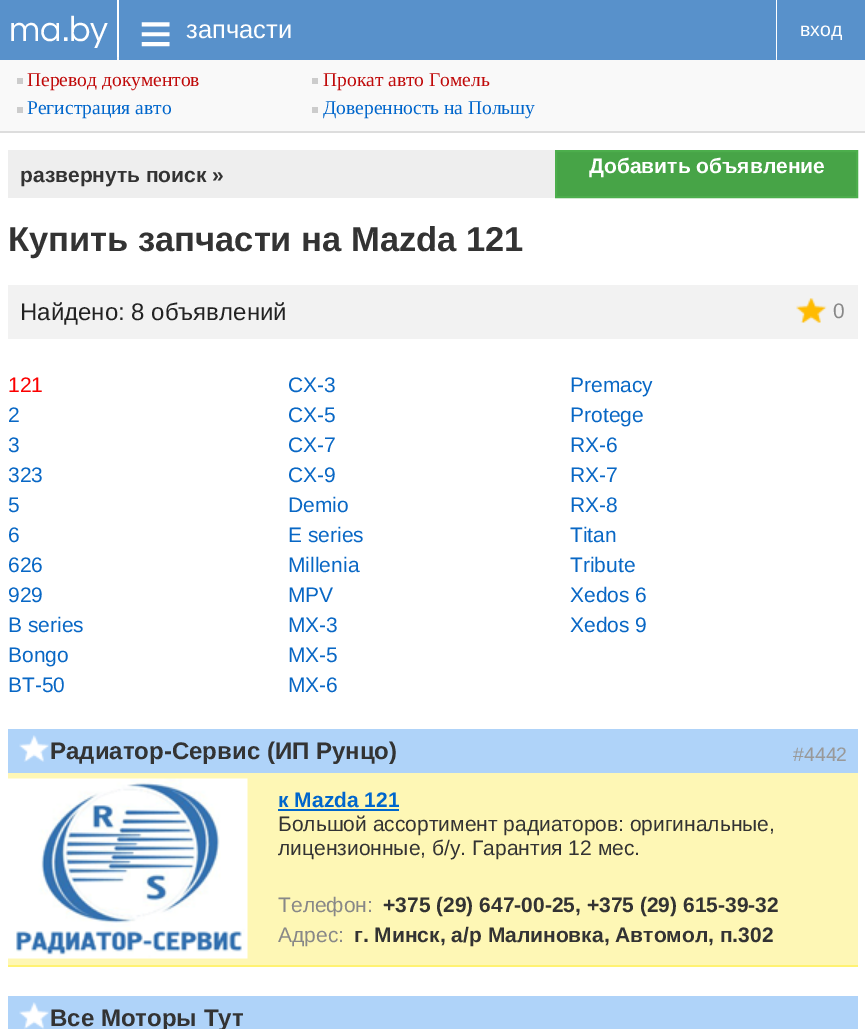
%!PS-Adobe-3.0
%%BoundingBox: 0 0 865 1029
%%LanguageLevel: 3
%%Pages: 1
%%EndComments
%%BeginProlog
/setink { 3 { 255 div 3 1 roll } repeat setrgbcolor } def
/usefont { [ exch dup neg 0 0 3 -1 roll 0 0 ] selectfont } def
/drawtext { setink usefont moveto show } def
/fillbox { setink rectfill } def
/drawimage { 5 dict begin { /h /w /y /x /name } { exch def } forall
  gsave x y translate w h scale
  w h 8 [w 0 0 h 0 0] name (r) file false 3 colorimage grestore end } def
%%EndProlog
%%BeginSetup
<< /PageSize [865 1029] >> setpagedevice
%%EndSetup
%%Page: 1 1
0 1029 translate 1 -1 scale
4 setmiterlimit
0 0 865 1029 255 255 255 fillbox
0 57 865 74 249 249 249 fillbox
0 0 117 60 88 145 203 fillbox
(ma.by) 9 41 /Questrial-Regular 36 255 255 255 drawtext
119 0 657 60 88 145 203 fillbox
(≡) 139 53 /LiberationSans-Regular 57 255 255 255 drawtext
(запчасти) 186 38 /LiberationSans-Regular 25.5 255 255 255 drawtext
777 0 88 60 88 145 203 fillbox
(вход) 800 36 /LiberationSans-Regular 19.5 255 255 255 drawtext
0 131 865 2 221 221 221 fillbox
(Перевод документов) 27 86 /LiberationSerif-Regular 19.5 192 10 10 drawtext
17 78 6 6 204 204 204 fillbox
(Прокат авто Гомель) 323 86 /LiberationSerif-Regular 19.5 192 10 10 drawtext
312 78 6 6 204 204 204 fillbox
(Регистрация авто) 27 114 /LiberationSerif-Regular 19.5 0 102 204 drawtext
17 107 6 6 204 204 204 fillbox
(Доверенность на Польшу) 323 114 /LiberationSerif-Regular 19.5 0 102 204 drawtext
312 107 6 6 204 204 204 fillbox
8 150 547 48 238 238 238 fillbox
(развернуть поиск ») 20 182 /LiberationSans-Bold 21 51 51 51 drawtext
71 164 71 setink
556 151 moveto 857 151 lineto 857 197 lineto 556 197 lineto closepath gsave fill grestore
76 174 76 setink
2 setlinewidth
stroke
(Добавить объявление) 589 173 /LiberationSans-Bold 21 255 255 255 drawtext
(Купить запчасти на Mazda 121) 8 251 /LiberationSans-Bold 34.5 51 51 51 drawtext
8 285 850 54 242 242 242 fillbox
(Найдено: 8 объявлений) 20 320 /LiberationSans-Regular 24 34 34 34 drawtext
(assets/img1.rgb) 796 298 31 25 drawimage
(0) 833 318 /LiberationSans-Regular 21 136 136 136 drawtext
(121) 8 392 /LiberationSans-Regular 21 251 0 0 drawtext
(2) 8 422 /LiberationSans-Regular 21 8 103 197 drawtext
(3) 8 452 /LiberationSans-Regular 21 8 103 197 drawtext
(323) 8 482 /LiberationSans-Regular 21 8 103 197 drawtext
(5) 8 512 /LiberationSans-Regular 21 8 103 197 drawtext
(6) 8 542 /LiberationSans-Regular 21 8 103 197 drawtext
(626) 8 572 /LiberationSans-Regular 21 8 103 197 drawtext
(929) 8 602 /LiberationSans-Regular 21 8 103 197 drawtext
(B series) 8 632 /LiberationSans-Regular 21 8 103 197 drawtext
(Bongo) 8 662 /LiberationSans-Regular 21 8 103 197 drawtext
(BT-50) 8 692 /LiberationSans-Regular 21 8 103 197 drawtext
(CX-3) 288 392 /LiberationSans-Regular 21 8 103 197 drawtext
(CX-5) 288 422 /LiberationSans-Regular 21 8 103 197 drawtext
(CX-7) 288 452 /LiberationSans-Regular 21 8 103 197 drawtext
(CX-9) 288 482 /LiberationSans-Regular 21 8 103 197 drawtext
(Demio) 288 512 /LiberationSans-Regular 21 8 103 197 drawtext
(E series) 288 542 /LiberationSans-Regular 21 8 103 197 drawtext
(Millenia) 288 572 /LiberationSans-Regular 21 8 103 197 drawtext
(MPV) 288 602 /LiberationSans-Regular 21 8 103 197 drawtext
(MX-3) 288 632 /LiberationSans-Regular 21 8 103 197 drawtext
(MX-5) 288 662 /LiberationSans-Regular 21 8 103 197 drawtext
(MX-6) 288 692 /LiberationSans-Regular 21 8 103 197 drawtext
(Premacy) 570 392 /LiberationSans-Regular 21 8 103 197 drawtext
(Protege) 570 422 /LiberationSans-Regular 21 8 103 197 drawtext
(RX-6) 570 452 /LiberationSans-Regular 21 8 103 197 drawtext
(RX-7) 570 482 /LiberationSans-Regular 21 8 103 197 drawtext
(RX-8) 570 512 /LiberationSans-Regular 21 8 103 197 drawtext
(Titan) 570 542 /LiberationSans-Regular 21 8 103 197 drawtext
(Tribute) 570 572 /LiberationSans-Regular 21 8 103 197 drawtext
(Xedos 6) 570 602 /LiberationSans-Regular 21 8 103 197 drawtext
(Xedos 9) 570 632 /LiberationSans-Regular 21 8 103 197 drawtext
8 773 850 192 254 247 181 fillbox
8 965 850 2 255 242 115 fillbox
8 729 850 44 175 211 249 fillbox
(assets/img2.rgb) 19 735 30 27 drawimage
(Радиатор-Сервис \(ИП Рунцо\)) 50 759 /LiberationSans-Bold 24 51 51 51 drawtext
(#4442) 793 761 /LiberationSans-Regular 19.5 153 153 153 drawtext
(assets/img3.rgb) 8 778 240 181 drawimage
(к Mazda 121) 278 807 /LiberationSans-Bold 21 0 102 204 drawtext
278 809 121 2 0 102 204 fillbox
(Большой ассортимент радиаторов: оригинальные,) 278 831 /LiberationSans-Regular 21 51 51 51 drawtext
(лицензионные, б/у. Гарантия 12 мес.) 278 855 /LiberationSans-Regular 21 51 51 51 drawtext
(Телефон:) 278 912 /LiberationSans-Regular 21 136 136 136 drawtext
(+375 \(29\) 647-00-25, +375 \(29\) 615-39-32) 383 912 /LiberationSans-Bold 21 51 51 51 drawtext
(Адрес:) 278 942 /LiberationSans-Regular 21 136 136 136 drawtext
(г. Минск, а/р Малиновка, Автомол, п.302) 354 942 /LiberationSans-Bold 21 51 51 51 drawtext
8 996 850 33 175 211 249 fillbox
(assets/img2.rgb) 19 1002 30 27 drawimage
(Все Моторы Тут) 50 1026 /LiberationSans-Bold 24 51 51 51 drawtext
showpage
%%EOF
